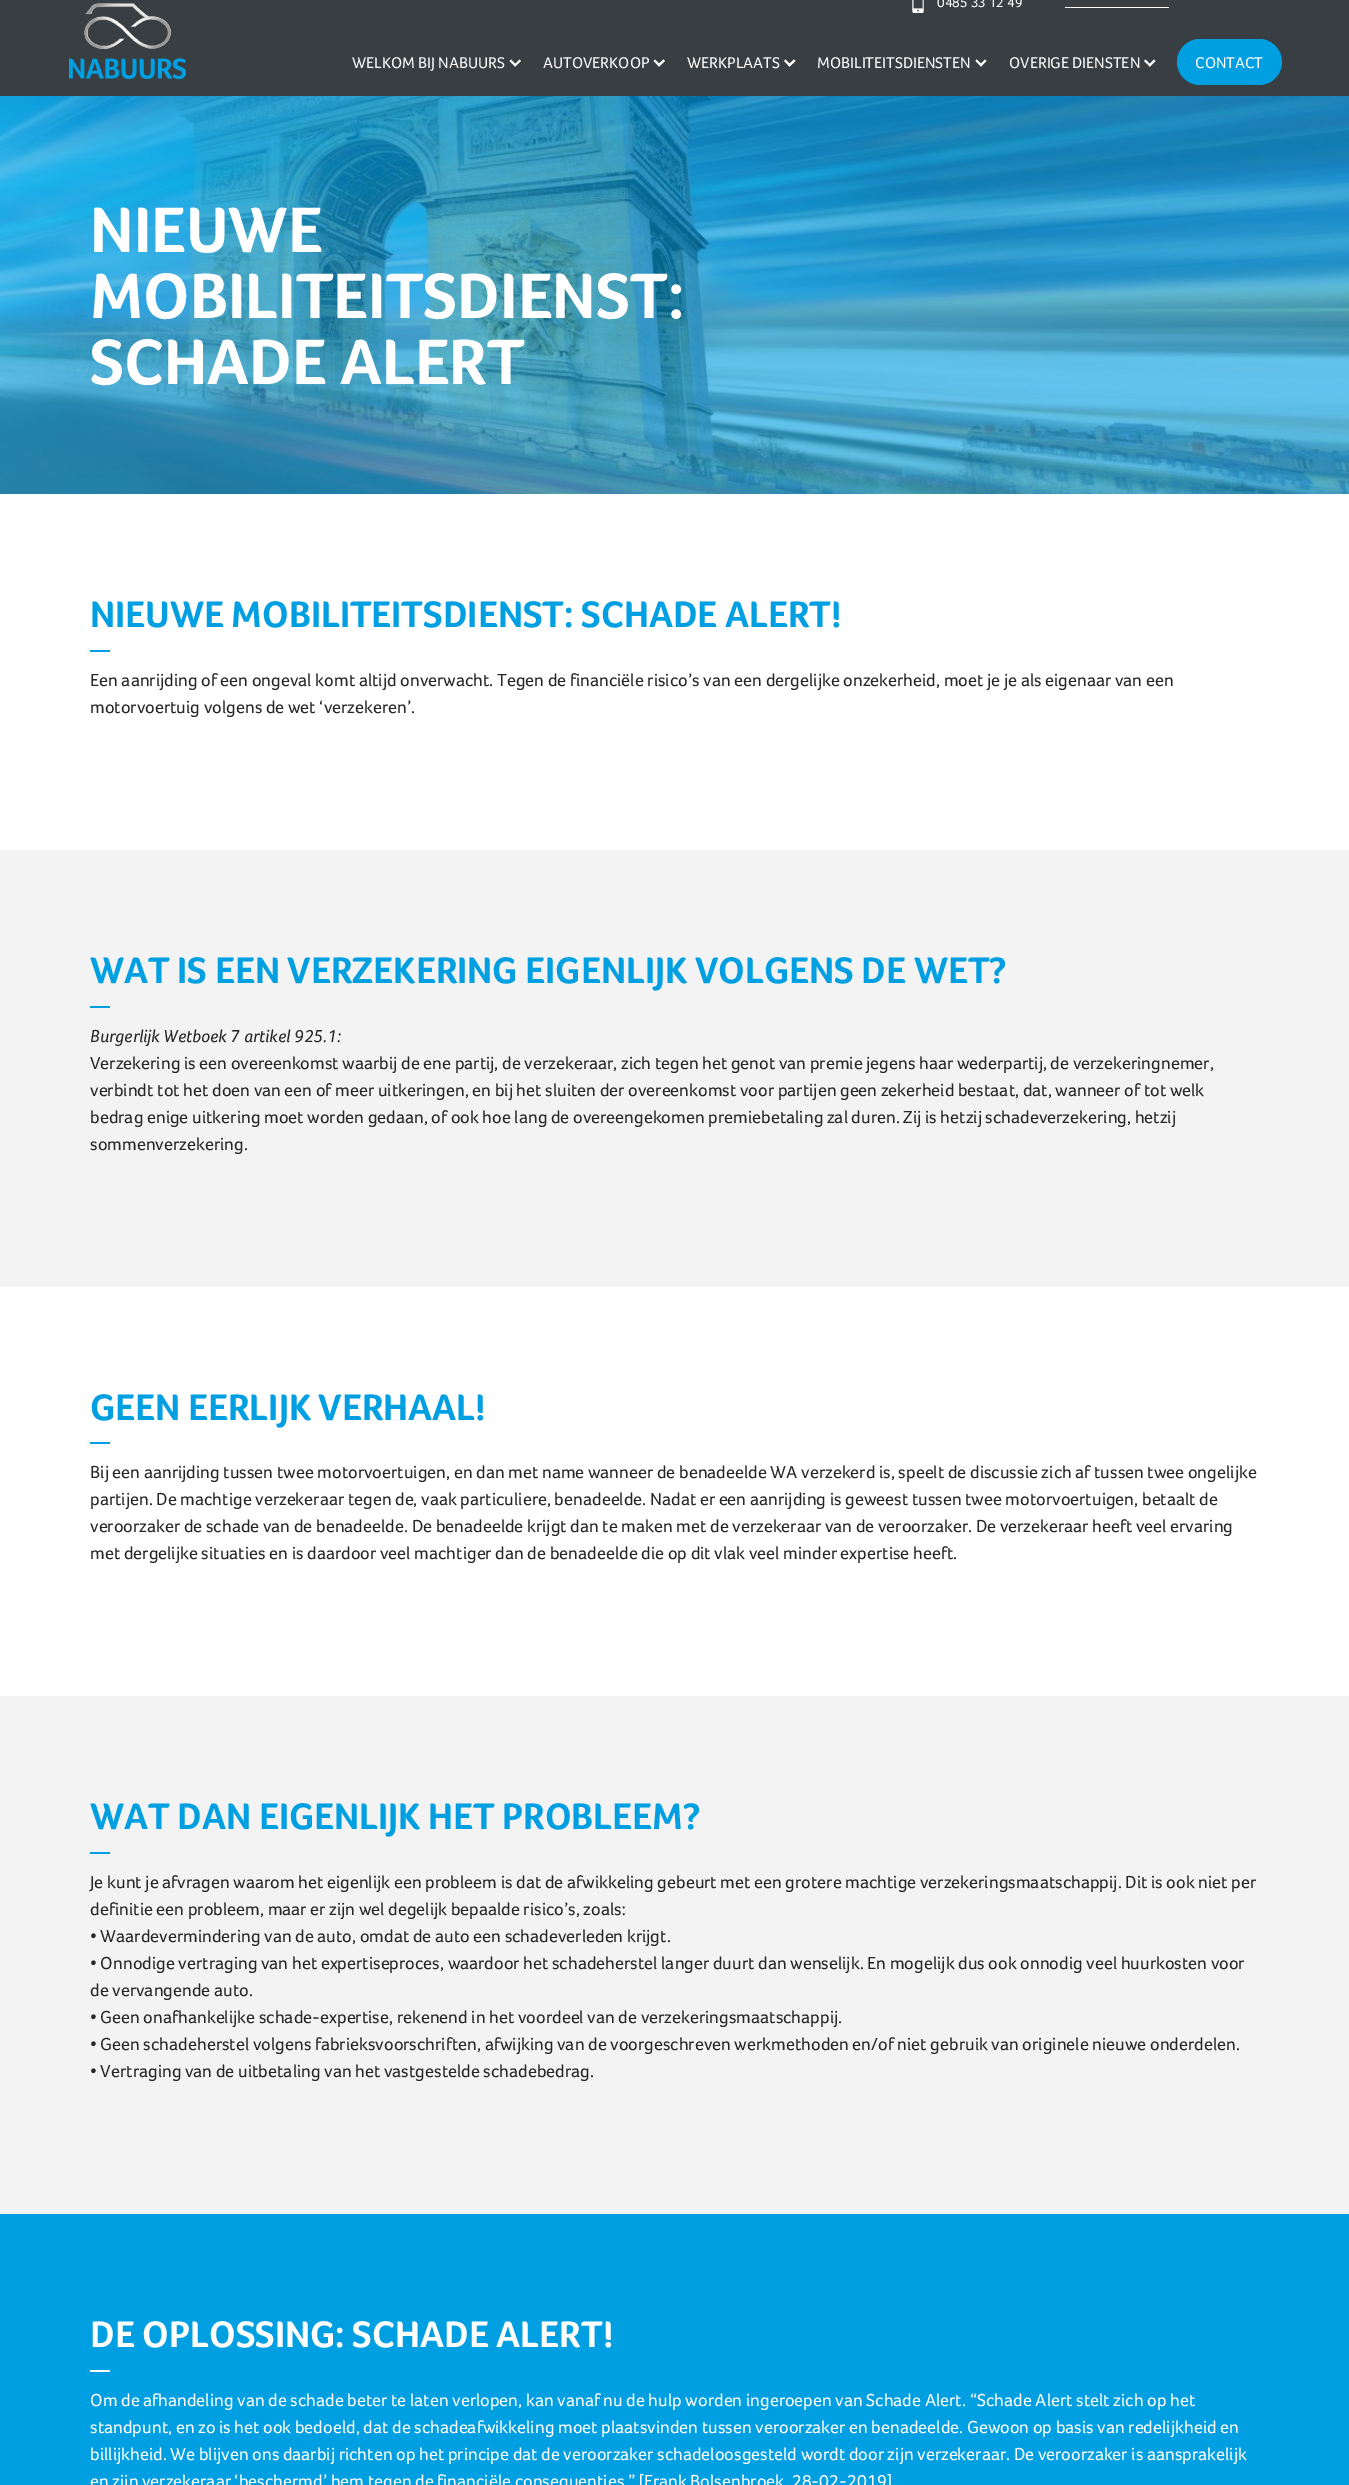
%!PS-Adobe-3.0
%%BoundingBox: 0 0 1349 2485
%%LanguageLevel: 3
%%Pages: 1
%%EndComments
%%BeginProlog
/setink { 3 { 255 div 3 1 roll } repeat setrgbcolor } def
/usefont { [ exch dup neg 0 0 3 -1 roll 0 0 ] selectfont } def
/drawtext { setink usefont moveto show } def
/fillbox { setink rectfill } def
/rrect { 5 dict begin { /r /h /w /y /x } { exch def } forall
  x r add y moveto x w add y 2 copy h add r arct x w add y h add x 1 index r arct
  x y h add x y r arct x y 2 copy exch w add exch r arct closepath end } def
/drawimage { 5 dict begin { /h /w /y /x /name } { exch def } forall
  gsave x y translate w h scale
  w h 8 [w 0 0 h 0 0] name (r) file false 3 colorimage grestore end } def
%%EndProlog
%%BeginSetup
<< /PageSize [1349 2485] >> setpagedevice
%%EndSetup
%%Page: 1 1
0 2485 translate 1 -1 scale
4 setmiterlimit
0 0 1349 2485 255 255 255 fillbox
0 0 1349 96 57 62 66 fillbox
(assets/img1.rgb) 912 0 12 13 drawimage
(0485 33 12 49) 937 7 /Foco-Regular 14 255 255 255 drawtext
1065 7 104 1 255 255 255 fillbox
(assets/img2.rgb) 69 3 117 76 drawimage
(WELKOM BIJ NABUURS) 352 68 /Foco-Regular 16 255 255 255 drawtext
519.5 59.5 moveto 521 61 lineto 515 66.5 lineto 514 65 lineto closepath fill
511 59.5 moveto 516.5 65 lineto 515 66.5 lineto 509.5 61 lineto closepath fill
(AUTOVERKOOP) 543 68 /Foco-Regular 16 255 255 255 drawtext
663.5 59.5 moveto 665 61 lineto 659 66.5 lineto 657.5 65 lineto closepath fill
655 59.5 moveto 660.5 65 lineto 659 66.5 lineto 653.5 61 lineto closepath fill
(WERKPLAATS) 687 68 /Foco-Regular 16 255 255 255 drawtext
794 59.5 moveto 795.5 61 lineto 789.5 66.5 lineto 788 65 lineto closepath fill
785.5 59.5 moveto 791 65 lineto 789.5 66.5 lineto 784 61 lineto closepath fill
(MOBILITEITSDIENSTEN) 817 68 /Foco-Regular 16 255 255 255 drawtext
985 59.5 moveto 986.5 61 lineto 981 66.5 lineto 979.5 65 lineto closepath fill
976.5 59.5 moveto 982.5 65 lineto 981 66.5 lineto 975.5 61 lineto closepath fill
(OVERIGE DIENSTEN) 1009 68 /Foco-Regular 16 255 255 255 drawtext
1154 59.5 moveto 1155.5 61 lineto 1150 66.5 lineto 1148.5 65 lineto closepath fill
1145.5 59.5 moveto 1151 65 lineto 1150 66.5 lineto 1144 61 lineto closepath fill
0 159 226 setink
1177 39 105 46 23 rrect fill
(CONTACT) 1195 68 /Foco-Regular 16 255 255 255 drawtext
(assets/img3.rgb) 0 96 1349 398 drawimage
(NIEUWE) 90 252 /Foco-Bold 66 255 255 255 drawtext
(MOBILITEITSDIENST:) 90 318 /Foco-Bold 66 255 255 255 drawtext
(SCHADE ALERT) 90 384 /Foco-Bold 66 255 255 255 drawtext
(NIEUWE MOBILITEITSDIENST: SCHADE ALERT!) 90 627 /Foco-Bold 38 0 159 226 drawtext
90 650 20 2 0 159 226 fillbox
(Een aanrijding of een ongeval komt altijd onverwacht. Tegen de financiële risico’s van een dergelijke onzekerheid, moet je je als eigenaar van een) 90 686 /Foco-Regular 18 38 38 38 drawtext
(motorvoertuig volgens de wet ‘verzekeren’.) 90 713 /Foco-Regular 18 38 38 38 drawtext
0 850 1349 437 243 243 243 fillbox
(WAT IS EEN VERZEKERING EIGENLIJK VOLGENS DE WET?) 90 983 /Foco-Bold 38 0 159 226 drawtext
90 1006 20 2 0 159 226 fillbox
(Burgerlijk Wetboek 7 artikel 925.1:) 90 1042 /Foco-Italic 18 38 38 38 drawtext
(Verzekering is een overeenkomst waarbij de ene partij, de verzekeraar, zich tegen het genot van premie jegens haar wederpartij, de verzekeringnemer,) 90 1069 /Foco-Regular 18 38 38 38 drawtext
(verbindt tot het doen van een of meer uitkeringen, en bij het sluiten der overeenkomst voor partijen geen zekerheid bestaat, dat, wanneer of tot welk) 90 1096 /Foco-Regular 18 38 38 38 drawtext
(bedrag enige uitkering moet worden gedaan, of ook hoe lang de overeengekomen premiebetaling zal duren. Zij is hetzij schadeverzekering, hetzij) 90 1123 /Foco-Regular 18 38 38 38 drawtext
(sommenverzekering.) 90 1150 /Foco-Regular 18 38 38 38 drawtext
(GEEN EERLIJK VERHAAL!) 90 1420 /Foco-Bold 38 0 159 226 drawtext
90 1442 20 2 0 159 226 fillbox
(Bij een aanrijding tussen twee motorvoertuigen, en dan met name wanneer de benadeelde WA verzekerd is, speelt de discussie zich af tussen twee ongelijke) 90 1478 /Foco-Regular 18 38 38 38 drawtext
(partijen. De machtige verzekeraar tegen de, vaak particuliere, benadeelde. Nadat er een aanrijding is geweest tussen twee motorvoertuigen, betaalt de) 90 1505 /Foco-Regular 18 38 38 38 drawtext
(veroorzaker de schade van de benadeelde. De benadeelde krijgt dan te maken met de verzekeraar van de veroorzaker. De verzekeraar heeft veel ervaring) 90 1532 /Foco-Regular 18 38 38 38 drawtext
(met dergelijke situaties en is daardoor veel machtiger dan de benadeelde die op dit vlak veel minder expertise heeft.) 90 1559 /Foco-Regular 18 38 38 38 drawtext
0 1696 1349 518 243 243 243 fillbox
(WAT DAN EIGENLIJK HET PROBLEEM?) 90 1829 /Foco-Bold 38 0 159 226 drawtext
90 1852 20 2 0 159 226 fillbox
(Je kunt je afvragen waarom het eigenlijk een probleem is dat de afwikkeling gebeurt met een grotere machtige verzekeringsmaatschappij. Dit is ook niet per) 90 1888 /Foco-Regular 18 38 38 38 drawtext
(definitie een probleem, maar er zijn wel degelijk bepaalde risico’s, zoals:) 90 1915 /Foco-Regular 18 38 38 38 drawtext
(• Waardevermindering van de auto, omdat de auto een schadeverleden krijgt.) 90 1942 /Foco-Regular 18 38 38 38 drawtext
(• Onnodige vertraging van het expertiseproces, waardoor het schadeherstel langer duurt dan wenselijk. En mogelijk dus ook onnodig veel huurkosten voor) 90 1969 /Foco-Regular 18 38 38 38 drawtext
(de vervangende auto.) 90 1996 /Foco-Regular 18 38 38 38 drawtext
(• Geen onafhankelijke schade-expertise, rekenend in het voordeel van de verzekeringsmaatschappij.) 90 2023 /Foco-Regular 18 38 38 38 drawtext
(• Geen schadeherstel volgens fabrieksvoorschriften, afwijking van de voorgeschreven werkmethoden en/of niet gebruik van originele nieuwe onderdelen.) 90 2050 /Foco-Regular 18 38 38 38 drawtext
(• Vertraging van de uitbetaling van het vastgestelde schadebedrag.) 90 2077 /Foco-Regular 18 38 38 38 drawtext
0 2214 1349 271 0 159 226 fillbox
(DE OPLOSSING: SCHADE ALERT!) 90 2347 /Foco-Bold 38 255 255 255 drawtext
90 2370 20 2 255 255 255 fillbox
(Om de afhandeling van de schade beter te laten verlopen, kan vanaf nu de hulp worden ingeroepen van Schade Alert. “Schade Alert stelt zich op het) 90 2406 /Foco-Regular 18 255 255 255 drawtext
(standpunt, en zo is het ook bedoeld, dat de schadeafwikkeling moet plaatsvinden tussen veroorzaker en benadeelde. Gewoon op basis van redelijkheid en) 90 2433 /Foco-Regular 18 255 255 255 drawtext
(billijkheid. We blijven ons daarbij richten op het principe dat de veroorzaker schadeloosgesteld wordt door zijn verzekeraar. De veroorzaker is aansprakelijk) 90 2460 /Foco-Regular 18 255 255 255 drawtext
(en zijn verzekeraar ‘beschermd’ hem tegen de financiële consequenties.” [Frank Bolsenbroek, 28-02-2019]) 90 2487 /Foco-Regular 18 255 255 255 drawtext
showpage
%%EOF
